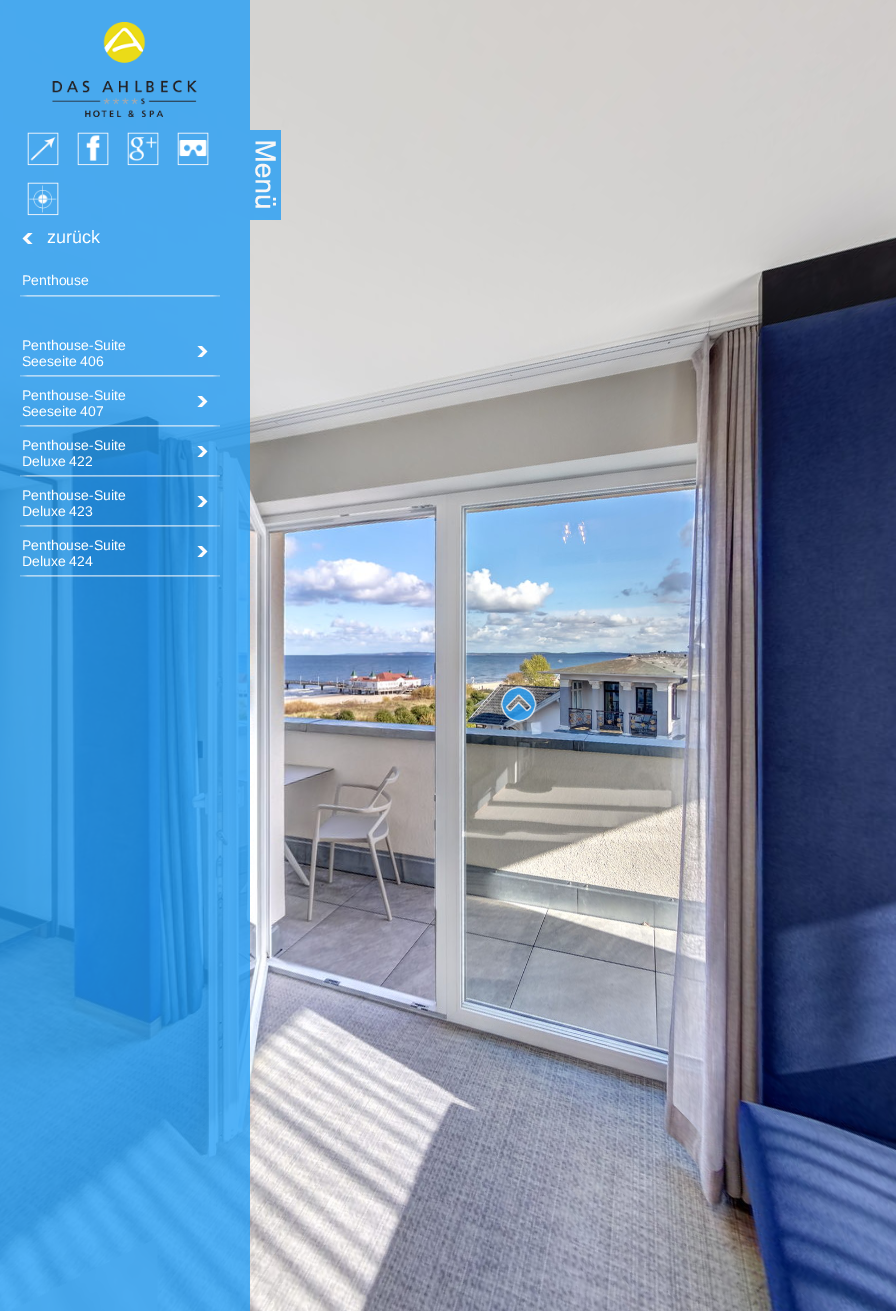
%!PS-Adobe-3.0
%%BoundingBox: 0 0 896 1311
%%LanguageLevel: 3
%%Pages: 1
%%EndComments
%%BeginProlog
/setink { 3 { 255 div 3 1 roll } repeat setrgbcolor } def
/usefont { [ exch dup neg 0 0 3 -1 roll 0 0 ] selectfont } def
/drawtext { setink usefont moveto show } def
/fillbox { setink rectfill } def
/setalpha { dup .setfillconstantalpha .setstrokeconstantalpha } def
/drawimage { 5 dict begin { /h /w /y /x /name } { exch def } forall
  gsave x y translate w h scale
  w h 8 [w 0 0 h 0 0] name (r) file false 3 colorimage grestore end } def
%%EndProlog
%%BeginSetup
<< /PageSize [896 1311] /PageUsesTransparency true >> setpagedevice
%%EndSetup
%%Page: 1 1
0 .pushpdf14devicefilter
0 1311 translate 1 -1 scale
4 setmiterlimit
0 0 896 1311 255 255 255 fillbox
(assets/img1.rgb) 0 0 896 1311 drawimage
0.8 setalpha
0 0 250 1311 37 158 245 fillbox
1 setalpha
(assets/img2.rgb) 52 22 145 95 drawimage
(assets/img3.rgb) 250 130 31 90 drawimage
(assets/img4.rgb) 27 132 32 34 drawimage
(assets/img5.rgb) 77 132 32 34 drawimage
(assets/img6.rgb) 127 132 32 34 drawimage
(assets/img7.rgb) 177 132 32 34 drawimage
(assets/img8.rgb) 27 182 32 34 drawimage
(assets/img9.rgb) 22 233 11 11 drawimage
(zurück) 47 243 /LiberationSans-Regular 18 255 255 255 drawtext
(Penthouse) 22 285 /LiberationSans-Regular 14 255 255 255 drawtext
(assets/img10.rgb) 20 295 200 2 drawimage
(Penthouse-Suite) 22 350 /LiberationSans-Regular 14 255 255 255 drawtext
(Seeseite 406) 22 366 /LiberationSans-Regular 14 255 255 255 drawtext
(assets/img11.rgb) 197 346 11 11 drawimage
(assets/img12.rgb) 20 375 200 2 drawimage
(Penthouse-Suite) 22 400 /LiberationSans-Regular 14 255 255 255 drawtext
(Seeseite 407) 22 416 /LiberationSans-Regular 14 255 255 255 drawtext
(assets/img13.rgb) 197 396 11 11 drawimage
(assets/img14.rgb) 20 425 200 2 drawimage
(Penthouse-Suite) 22 450 /LiberationSans-Regular 14 255 255 255 drawtext
(Deluxe 422) 22 466 /LiberationSans-Regular 14 255 255 255 drawtext
(assets/img15.rgb) 197 446 11 11 drawimage
(assets/img16.rgb) 20 475 200 2 drawimage
(Penthouse-Suite) 22 500 /LiberationSans-Regular 14 255 255 255 drawtext
(Deluxe 423) 22 516 /LiberationSans-Regular 14 255 255 255 drawtext
(assets/img17.rgb) 197 496 11 11 drawimage
(assets/img18.rgb) 20 525 200 2 drawimage
(Penthouse-Suite) 22 550 /LiberationSans-Regular 14 255 255 255 drawtext
(Deluxe 424) 22 566 /LiberationSans-Regular 14 255 255 255 drawtext
(assets/img19.rgb) 197 546 11 11 drawimage
(assets/img20.rgb) 20 575 200 2 drawimage
.poppdf14devicefilter showpage
%%EOF
